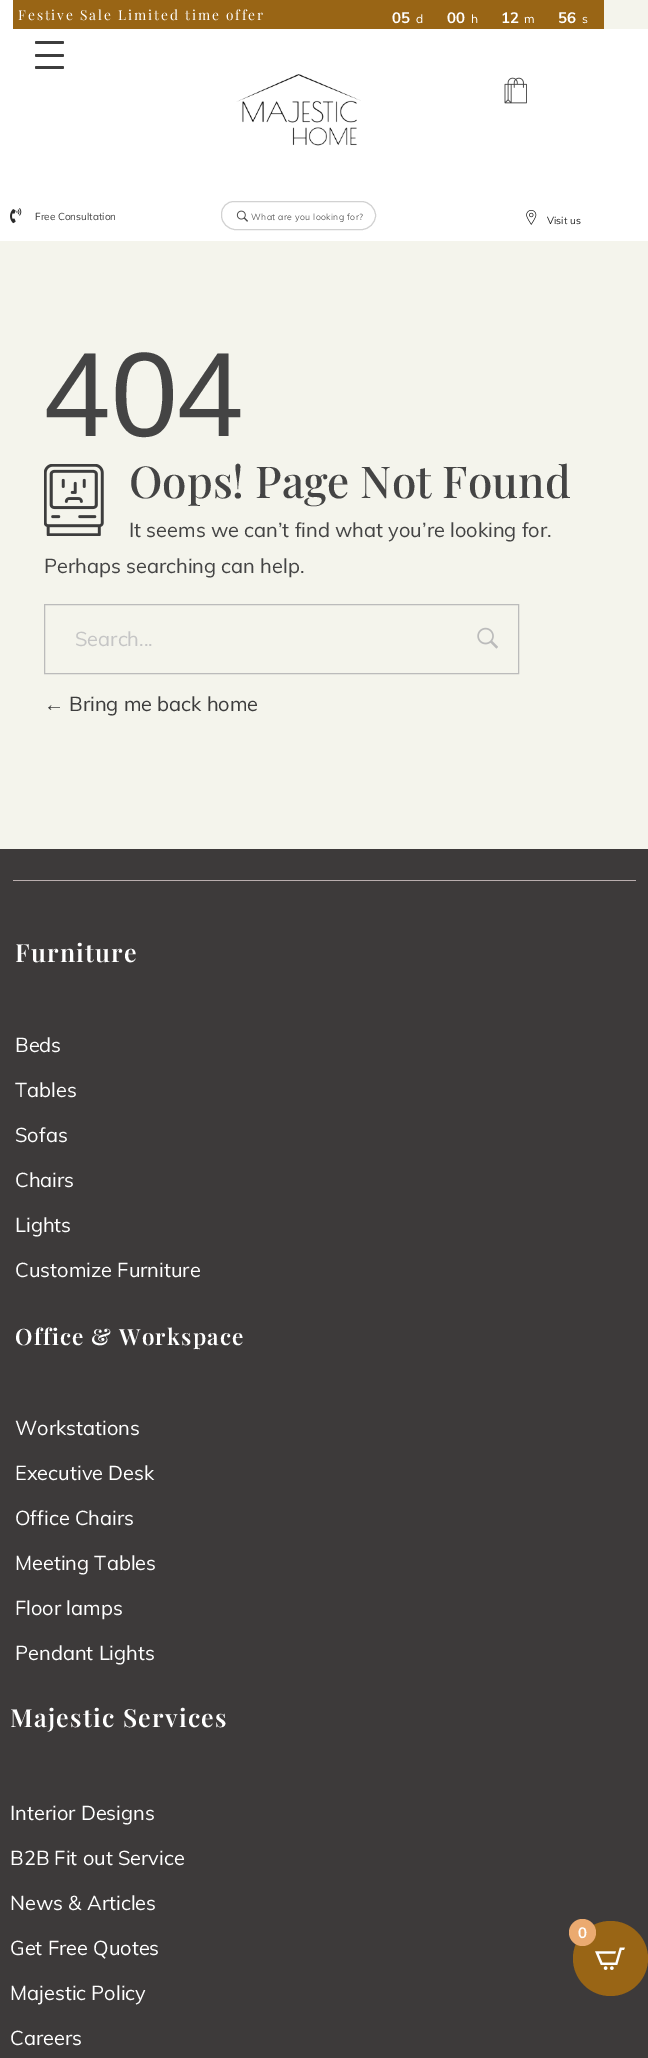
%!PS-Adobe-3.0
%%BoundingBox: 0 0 648 2058
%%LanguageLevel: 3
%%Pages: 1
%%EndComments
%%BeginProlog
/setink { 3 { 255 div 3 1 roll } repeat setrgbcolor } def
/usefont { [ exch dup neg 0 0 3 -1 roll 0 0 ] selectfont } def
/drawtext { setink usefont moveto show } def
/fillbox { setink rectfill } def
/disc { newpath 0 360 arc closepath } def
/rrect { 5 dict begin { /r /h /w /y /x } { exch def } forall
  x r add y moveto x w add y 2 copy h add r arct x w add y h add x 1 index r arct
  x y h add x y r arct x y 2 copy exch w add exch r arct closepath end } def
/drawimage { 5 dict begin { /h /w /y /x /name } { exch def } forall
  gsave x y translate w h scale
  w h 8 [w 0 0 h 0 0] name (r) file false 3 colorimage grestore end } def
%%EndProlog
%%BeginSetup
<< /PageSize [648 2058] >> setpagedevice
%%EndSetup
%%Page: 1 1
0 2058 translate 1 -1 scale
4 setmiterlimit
0 0 648 2058 244 244 236 fillbox
0 0 13 29 255 255 255 fillbox
13 0 591 29 153 101 21 fillbox
/PlayfairDisplay-Regular 13.75 usefont
255 255 255 setink
18 20 moveto 1.9 0 (Festive Sale Limited time offer) ashow
/Muli-Bold 15 usefont
392 23 moveto 0.4 0 (05) ashow
(d) 416 23 /Muli-Regular 12 255 255 255 drawtext
/Muli-Bold 15 usefont
447 23 moveto 0.4 0 (00) ashow
(h) 471 23 /Muli-Regular 12 255 255 255 drawtext
/Muli-Bold 15 usefont
501 23 moveto 0.4 0 (12) ashow
(m) 524 23 /Muli-Regular 12 255 255 255 drawtext
/Muli-Bold 15 usefont
558 23 moveto 0.4 0 (56) ashow
(s) 582 23 /Muli-Regular 12 255 255 255 drawtext
0 29 648 212 255 255 255 fillbox
(assets/img1.rgb) 236 74 125 72 drawimage
(assets/img2.rgb) 504 77 23 27 drawimage
(assets/img3.rgb) 10 208 12 16 drawimage
(Free Consultation) 35 220 /Muli-Regular 10 61 61 61 drawtext
210 210 210 setink
234 201.5 moveto 361.5 201.5 lineto 369 201.5 375.5 208 375.5 215.5 curveto 375.5 223 369 229.5 361.5 229.5 curveto 235.5 229.5 lineto 228 229.5 221.5 223 221.5 215.5 curveto 221.5 214 lineto 221.5 207 227 201.5 234 201.5 curveto closepath stroke
(assets/img4.rgb) 236 210 12 12 drawimage
/Muli-Light 8.75 usefont
68 68 68 setink
251 220 moveto 0.4 0 (What are you looking for?) ashow
(assets/img5.rgb) 526 210 11 15 drawimage
(Visit us) 547 224 /Muli-Regular 10 32 32 32 drawtext
(404) 44 436 /LiberationSans-Regular 120 68 68 68 drawtext
(assets/img6.rgb) 44 464 60 72 drawimage
(Oops! Page Not Found) 129 498 /PlayfairDisplay-Medium 44 68 68 68 drawtext
(It seems we can’t find what you’re looking for.) 129 537 /Muli-Regular 20 68 68 68 drawtext
(Perhaps searching can help.) 44 573 /Muli-Regular 20 68 68 68 drawtext
187 187 187 setink
44.5 604.5 474 69 rectstroke
(Search...) 75 646 /Muli-Regular 20 197 197 197 drawtext
(assets/img7.rgb) 477 627 21 22 drawimage
(←) 44 711 /LiberationSans-Regular 20 61 61 61 drawtext
(Bring me back home) 69 711 /Muli-Regular 20 61 61 61 drawtext
0 849 648 1209 61 58 58 fillbox
13 880 623 1 186 174 174 fillbox
/PlayfairDisplay-SemiBold 25 usefont
255 255 255 setink
15 962 moveto 1.25 0 (Furniture) ashow
(Beds) 15 1052 /Muli-Regular 20 255 255 255 drawtext
(Tables) 15 1097 /Muli-Regular 20 255 255 255 drawtext
(Sofas) 15 1142 /Muli-Regular 20 255 255 255 drawtext
(Chairs) 15 1187 /Muli-Regular 20 255 255 255 drawtext
(Lights) 15 1232 /Muli-Regular 20 255 255 255 drawtext
(Customize Furniture) 15 1277 /Muli-Regular 20 255 255 255 drawtext
/PlayfairDisplay-SemiBold 22.5 usefont
15 1345 moveto 1.25 0 (Office & Workspace) ashow
(Workstations) 15 1435 /Muli-Regular 20 255 255 255 drawtext
(Executive Desk) 15 1480 /Muli-Regular 20 255 255 255 drawtext
(Office Chairs) 15 1525 /Muli-Regular 20 255 255 255 drawtext
(Meeting Tables) 15 1570 /Muli-Regular 20 255 255 255 drawtext
(Floor lamps) 15 1615 /Muli-Regular 20 255 255 255 drawtext
(Pendant Lights) 15 1660 /Muli-Regular 20 255 255 255 drawtext
/PlayfairDisplay-SemiBold 25 usefont
10 1727 moveto 1.25 0 (Majestic Services) ashow
(Interior Designs) 10 1820 /Muli-Regular 20 255 255 255 drawtext
(B2B Fit out Service) 10 1865 /Muli-Regular 20 255 255 255 drawtext
(News & Articles) 10 1910 /Muli-Regular 20 255 255 255 drawtext
(Get Free Quotes) 10 1955 /Muli-Regular 20 255 255 255 drawtext
(Majestic Policy) 10 2000 /Muli-Regular 20 255 255 255 drawtext
(Careers) 10 2045 /Muli-Regular 20 255 255 255 drawtext
61 61 61 setink
35 54 29 3 1.5 rrect fill
35 41 29 3 1.5 rrect fill
35 66 29 3 1.5 rrect fill
153 101 21 setink
610.5 1958.5 37.5 disc fill
235 170 112 setink
582.5 1932.5 13.5 disc fill
(0) 578 1938 /Muli-Bold 15 255 255 255 drawtext
(assets/img8.rgb) 595 1947 30 23 drawimage
showpage
%%EOF
